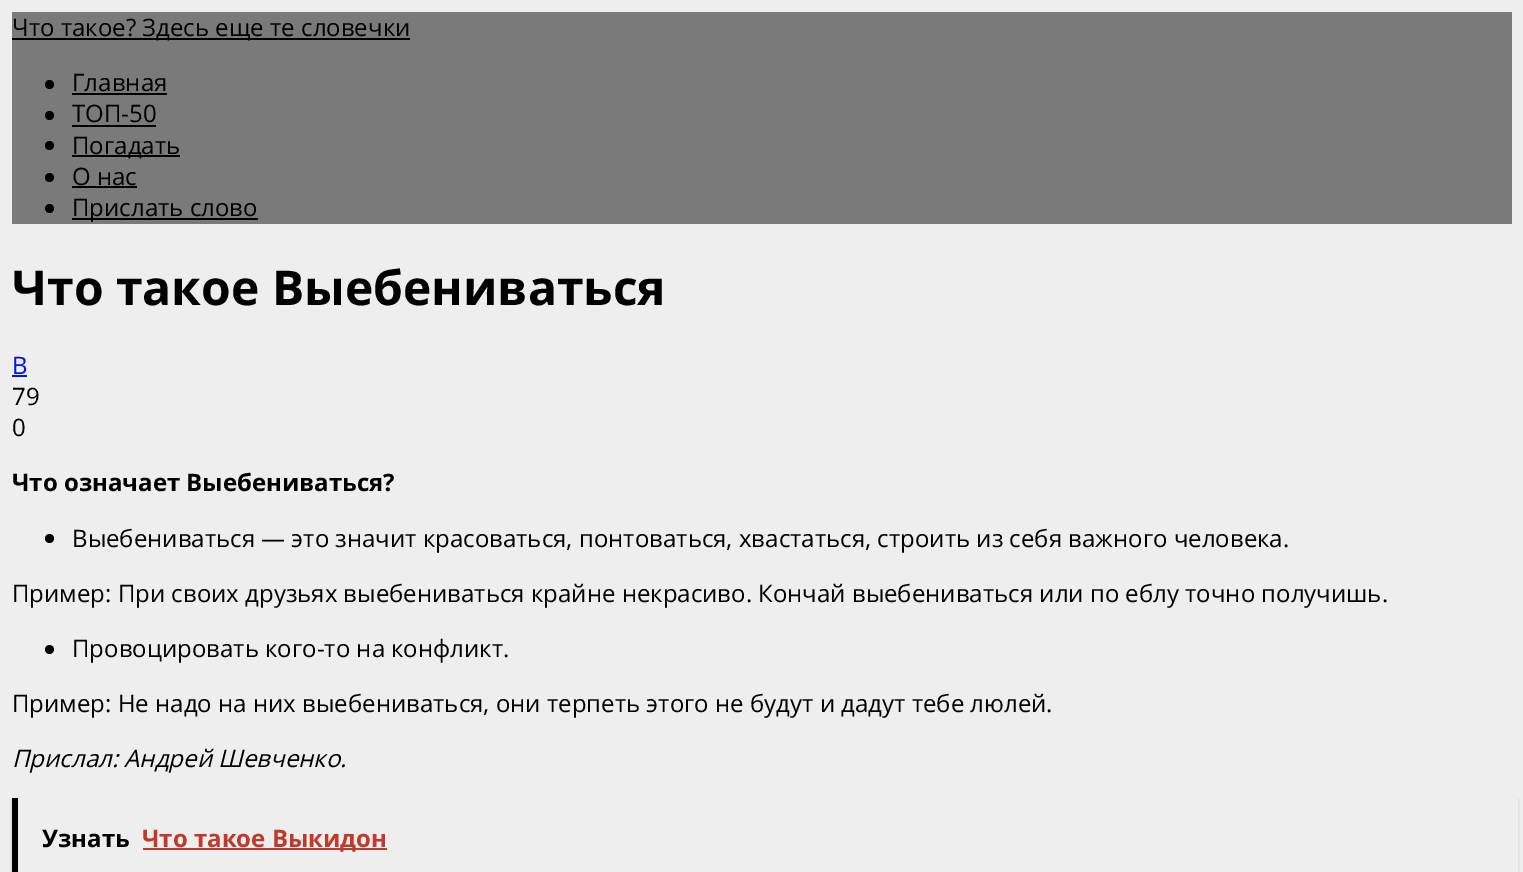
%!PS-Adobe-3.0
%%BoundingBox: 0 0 1523 872
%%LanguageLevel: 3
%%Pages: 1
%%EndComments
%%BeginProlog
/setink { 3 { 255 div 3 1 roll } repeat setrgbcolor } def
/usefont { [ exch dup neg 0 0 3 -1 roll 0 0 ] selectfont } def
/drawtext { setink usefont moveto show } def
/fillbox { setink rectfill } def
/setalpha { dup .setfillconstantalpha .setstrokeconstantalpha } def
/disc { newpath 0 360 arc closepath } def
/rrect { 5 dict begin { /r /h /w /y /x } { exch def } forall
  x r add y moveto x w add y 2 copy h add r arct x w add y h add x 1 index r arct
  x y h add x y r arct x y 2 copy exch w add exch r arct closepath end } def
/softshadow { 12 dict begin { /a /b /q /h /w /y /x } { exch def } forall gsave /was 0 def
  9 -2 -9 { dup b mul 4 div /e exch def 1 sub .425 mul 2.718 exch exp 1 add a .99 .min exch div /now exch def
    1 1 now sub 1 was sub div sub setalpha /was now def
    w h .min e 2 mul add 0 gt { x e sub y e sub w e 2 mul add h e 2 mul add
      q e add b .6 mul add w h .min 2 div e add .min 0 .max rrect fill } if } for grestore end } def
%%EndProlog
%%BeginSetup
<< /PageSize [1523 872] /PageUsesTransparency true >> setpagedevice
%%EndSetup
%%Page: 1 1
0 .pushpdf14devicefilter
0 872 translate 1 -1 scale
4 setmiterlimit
0 0 1523 872 238 238 238 fillbox
12 12 1500 212 122 122 122 fillbox
12 38 398 2 0 0 0 fillbox
(Что такое? Здесь еще те словечки) 12 36 /OpenSans-Regular 24 0 0 0 drawtext
49.5 84.5 4.5 disc fill
(Главная) 72 91 /OpenSans-Regular 24 0 0 0 drawtext
72 93 95 2 0 0 0 fillbox
49.5 115.5 4.5 disc fill
(ТОП-50) 72 122 /OpenSans-Regular 24 0 0 0 drawtext
72 125 84 2 0 0 0 fillbox
49.5 145.5 4.5 disc fill
72 155 108 2 0 0 0 fillbox
(Погадать) 72 154 /OpenSans-Regular 24 0 0 0 drawtext
49.5 177.5 4.5 disc fill
(О нас) 72 185 /OpenSans-Regular 24 0 0 0 drawtext
72 186 65 2 0 0 0 fillbox
49.5 208.5 4.5 disc fill
72 218 186 2 0 0 0 fillbox
(Прислать слово) 72 216 /OpenSans-Regular 24 0 0 0 drawtext
(Что такое Выебениваться) 12 305 /OpenSans-Bold 48 0 0 0 drawtext
(В) 12 374 /OpenSans-Regular 24 0 19 232 drawtext
12 375 15 2 0 19 232 fillbox
(79) 12 405 /OpenSans-Regular 24 0 0 0 drawtext
(0) 12 436 /OpenSans-Regular 24 0 0 0 drawtext
(Что означает Выебениваться?) 12 491 /OpenSans-Bold 24 0 0 0 drawtext
49.5 538.5 4.5 disc fill
(Выебениваться — это значит красоваться, понтоваться, хвастаться, строить из себя важного человека.) 72 547 /OpenSans-Regular 24 0 0 0 drawtext
(Пример: При своих друзьях выебениваться крайне некрасиво. Кончай выебениваться или по еблу точно получишь.) 12 602 /OpenSans-Regular 24 0 0 0 drawtext
49.5 649.5 4.5 disc fill
(Провоцировать кого-то на конфликт.) 72 657 /OpenSans-Regular 24 0 0 0 drawtext
(Пример: Не надо на них выебениваться, они терпеть этого не будут и дадут тебе люлей.) 12 712 /OpenSans-Regular 24 0 0 0 drawtext
(Прислал: Андрей Шевченко.) 12 767 /OpenSans-Italic 24 0 0 0 drawtext
gsave
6 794 moveto 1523 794 lineto 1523 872 lineto 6 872 lineto closepath 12 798 moveto 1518 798 lineto 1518 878 lineto 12 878 lineto closepath eoclip newpath
12 800 1506 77 0 1.5 0.17 softshadow
grestore
12 798 6 74 0 0 0 fillbox
(Узнать) 42 847 /OpenSans-Bold 24 0 0 0 drawtext
143 848 244 2 192 57 43 fillbox
(Что такое Выкидон) 142 847 /OpenSans-Bold 24 192 57 43 drawtext
.poppdf14devicefilter showpage
%%EOF
